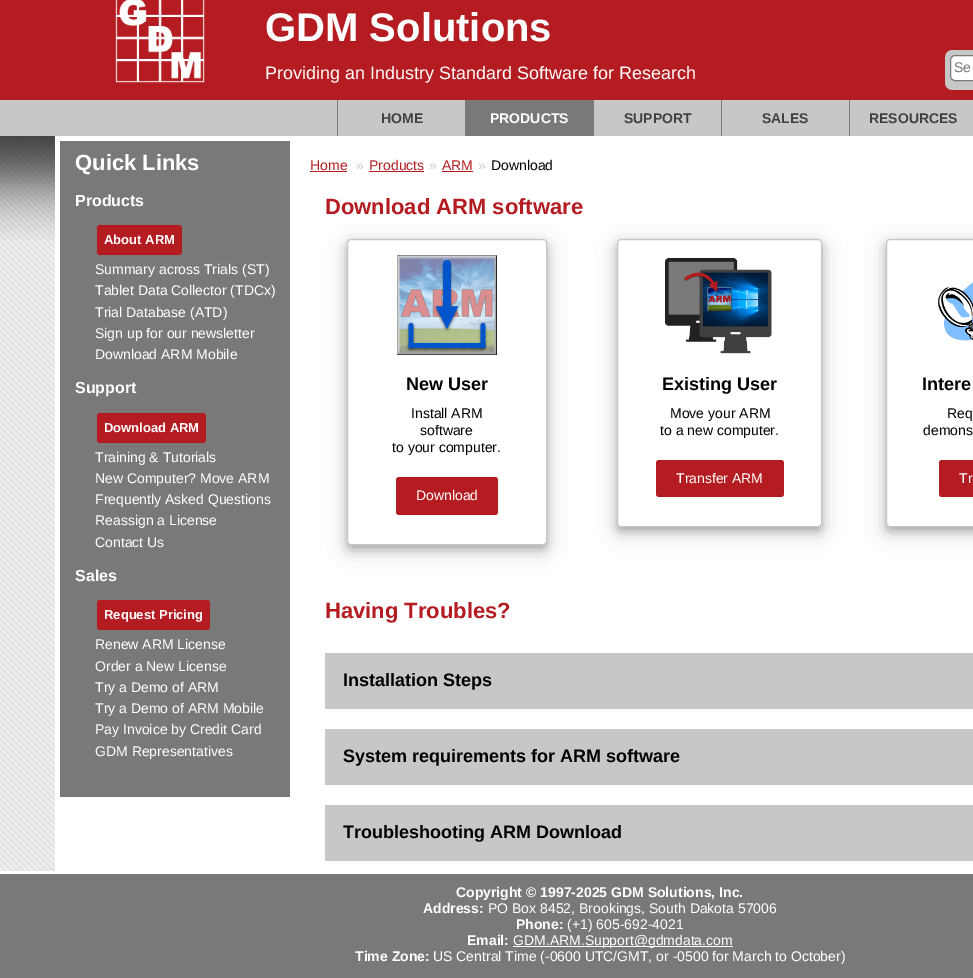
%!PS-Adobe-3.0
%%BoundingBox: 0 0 973 978
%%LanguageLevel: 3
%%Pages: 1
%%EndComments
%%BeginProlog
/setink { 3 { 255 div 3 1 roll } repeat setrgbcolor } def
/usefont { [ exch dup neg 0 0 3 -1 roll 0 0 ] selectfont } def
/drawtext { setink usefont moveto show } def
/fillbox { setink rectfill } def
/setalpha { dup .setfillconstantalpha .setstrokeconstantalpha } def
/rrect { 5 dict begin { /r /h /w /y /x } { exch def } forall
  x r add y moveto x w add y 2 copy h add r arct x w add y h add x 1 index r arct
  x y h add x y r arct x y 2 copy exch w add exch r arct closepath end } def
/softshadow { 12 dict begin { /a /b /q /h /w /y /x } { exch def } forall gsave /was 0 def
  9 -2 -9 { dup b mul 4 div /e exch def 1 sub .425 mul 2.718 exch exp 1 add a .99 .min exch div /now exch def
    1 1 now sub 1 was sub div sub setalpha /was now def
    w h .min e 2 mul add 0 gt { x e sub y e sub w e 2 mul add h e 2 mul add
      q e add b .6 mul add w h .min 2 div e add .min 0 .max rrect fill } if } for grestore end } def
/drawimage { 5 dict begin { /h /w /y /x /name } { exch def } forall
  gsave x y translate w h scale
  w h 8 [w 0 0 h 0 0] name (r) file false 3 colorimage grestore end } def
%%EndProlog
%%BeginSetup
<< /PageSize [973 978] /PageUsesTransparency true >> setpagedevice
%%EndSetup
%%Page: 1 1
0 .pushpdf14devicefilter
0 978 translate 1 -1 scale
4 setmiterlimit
0 0 973 978 255 255 255 fillbox
(assets/img1.rgb) 0 136 55 735 drawimage
(assets/img2.rgb) 0 136 55 104 drawimage
0 0 973 100 180 28 33 fillbox
(assets/img3.rgb) 115 0 90 83 drawimage
(GDM Solutions) 265 41 /LiberationSans-Bold 40 255 255 255 drawtext
(Providing an Industry Standard Software for Research) 265 79 /LiberationSans-Regular 18 255 255 255 drawtext
(assets/img4.rgb) 945 50 28 40 drawimage
950.5 55.5 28 25 4.5 rrect gsave fill grestore
122 121 122 setink
stroke
(Se) 954 72 /LiberationSans-Regular 14 117 117 117 drawtext
0 100 973 36 199 199 199 fillbox
337 100 1 36 122 121 122 fillbox
(HOME) 381 123 /LiberationSans-Bold 14 64 64 64 drawtext
465 100 129 36 122 121 122 fillbox
(PRODUCTS) 490 123 /LiberationSans-Bold 14 255 255 255 drawtext
(SUPPORT) 624 123 /LiberationSans-Bold 14 64 64 64 drawtext
721 100 1 36 122 121 122 fillbox
(SALES) 762 123 /LiberationSans-Bold 14 64 64 64 drawtext
849 100 1 36 122 121 122 fillbox
(RESOURCES) 869 123 /LiberationSans-Bold 14 64 64 64 drawtext
60 141 230 656 122 121 122 fillbox
(Quick Links) 75 170 /LiberationSans-Bold 22 255 255 255 drawtext
(Products) 75 206 /LiberationSans-Bold 16 255 255 255 drawtext
180 28 33 setink
97 225 85 30 3 rrect fill
(About ARM) 104 244 /LiberationSans-Bold 13 255 255 255 drawtext
(Summary across Trials \(ST\)) 95 274 /LiberationSans-Regular 14 255 255 255 drawtext
(Tablet Data Collector \(TDCx\)) 95 295 /LiberationSans-Regular 14 255 255 255 drawtext
(Trial Database \(ATD\)) 95 317 /LiberationSans-Regular 14 255 255 255 drawtext
(Sign up for our newsletter) 95 338 /LiberationSans-Regular 14 255 255 255 drawtext
(Download ARM Mobile) 95 359 /LiberationSans-Regular 14 255 255 255 drawtext
(Support) 75 393 /LiberationSans-Bold 16 255 255 255 drawtext
180 28 33 setink
97 413 109 30 3 rrect fill
(Download ARM) 104 432 /LiberationSans-Bold 13 255 255 255 drawtext
(Training & Tutorials) 95 462 /LiberationSans-Regular 14 255 255 255 drawtext
(New Computer? Move ARM) 95 483 /LiberationSans-Regular 14 255 255 255 drawtext
(Frequently Asked Questions) 95 504 /LiberationSans-Regular 14 255 255 255 drawtext
(Reassign a License) 95 525 /LiberationSans-Regular 14 255 255 255 drawtext
(Contact Us) 95 547 /LiberationSans-Regular 14 255 255 255 drawtext
(Sales) 75 581 /LiberationSans-Bold 16 255 255 255 drawtext
180 28 33 setink
97 600 113 30 3 rrect fill
(Request Pricing) 104 619 /LiberationSans-Bold 13 255 255 255 drawtext
(Renew ARM License) 95 649 /LiberationSans-Regular 14 255 255 255 drawtext
(Order a New License) 95 671 /LiberationSans-Regular 14 255 255 255 drawtext
(Try a Demo of ARM) 95 692 /LiberationSans-Regular 14 255 255 255 drawtext
(Try a Demo of ARM Mobile) 95 713 /LiberationSans-Regular 14 255 255 255 drawtext
(Pay Invoice by Credit Card) 95 734 /LiberationSans-Regular 14 255 255 255 drawtext
(GDM Representatives) 95 756 /LiberationSans-Regular 14 255 255 255 drawtext
(Home) 310 170 /LiberationSans-Regular 14 180 28 33 drawtext
310 171 37 1 180 28 33 fillbox
(») 356 170 /LiberationSans-Regular 14 204 204 204 drawtext
(Products) 369 170 /LiberationSans-Regular 14 180 28 33 drawtext
369 171 55 1 180 28 33 fillbox
(») 429 170 /LiberationSans-Regular 14 204 204 204 drawtext
(ARM) 442 170 /LiberationSans-Regular 14 180 28 33 drawtext
442 171 31 1 180 28 33 fillbox
(») 478 170 /LiberationSans-Regular 14 204 204 204 drawtext
(Download) 491 170 /LiberationSans-Regular 14 0 0 0 drawtext
(Download ARM software) 325 214 /LiberationSans-Bold 22 180 28 33 drawtext
0 0 0 setink
347 245 200 306 4 10 0.19 softshadow
347 243 200 306 4 4 0.2 softshadow
255 255 255 setink
347.5 239.5 199 305 3.5 rrect gsave fill grestore
199 199 199 setink
stroke
(assets/img5.rgb) 397 255 100 100 drawimage
(New User) 406 390 /LiberationSans-Bold 18 0 0 0 drawtext
(Install ARM) 411 418 /LiberationSans-Regular 14 0 0 0 drawtext
(software) 420 435 /LiberationSans-Regular 14 0 0 0 drawtext
(to your computer.) 392 452 /LiberationSans-Regular 14 0 0 0 drawtext
180 28 33 setink
396 477 102 38 3 rrect fill
(Download) 416 500 /LiberationSans-Regular 14 255 255 255 drawtext
0 0 0 setink
617 245 205 288 4 10 0.19 softshadow
617 243 205 288 4 4 0.2 softshadow
255 255 255 setink
617.5 239.5 204 287 3.5 rrect gsave fill grestore
199 199 199 setink
stroke
(assets/img6.rgb) 665 258 107 96 drawimage
(Existing User) 662 390 /LiberationSans-Bold 18 0 0 0 drawtext
(Move your ARM) 670 418 /LiberationSans-Regular 14 0 0 0 drawtext
(to a new computer.) 660 435 /LiberationSans-Regular 14 0 0 0 drawtext
180 28 33 setink
656 460 128 37 3 rrect fill
(Transfer ARM) 676 483 /LiberationSans-Regular 14 255 255 255 drawtext
0 0 0 setink
886 245 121 288 4 10 0.19 softshadow
886 243 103 288 4 4 0.2 softshadow
255 255 255 setink
886.5 239.5 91 287 3.5 rrect gsave fill grestore
199 199 199 setink
stroke
(assets/img7.rgb) 938 282 35 59 drawimage
(Intere) 922 390 /LiberationSans-Bold 18 0 0 0 drawtext
(Req) 947 418 /LiberationSans-Regular 14 0 0 0 drawtext
(demons) 923 435 /LiberationSans-Regular 14 0 0 0 drawtext
180 28 33 setink
939 460 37 37 3 rrect fill
(Tr) 959 483 /LiberationSans-Regular 14 255 255 255 drawtext
(Having Troubles?) 325 618 /LiberationSans-Bold 22 180 28 33 drawtext
325 653 648 56 199 199 199 fillbox
(Installation Steps) 343 686 /LiberationSans-Bold 18 0 0 0 drawtext
325 729 648 56 199 199 199 fillbox
(System requirements for ARM software) 343 762 /LiberationSans-Bold 18 0 0 0 drawtext
325 805 648 56 199 199 199 fillbox
(Troubleshooting ARM Download) 343 838 /LiberationSans-Bold 18 0 0 0 drawtext
0 874 973 104 122 121 122 fillbox
(Copyright © 1997-2025 GDM Solutions, Inc.) 456 897 /LiberationSans-Bold 14 255 255 255 drawtext
(Address:) 423 913 /LiberationSans-Bold 14 255 255 255 drawtext
(PO Box 8452, Brookings, South Dakota 57006) 488 913 /LiberationSans-Regular 14 255 255 255 drawtext
(Phone:) 516 929 /LiberationSans-Bold 14 255 255 255 drawtext
(\(+1\) 605-692-4021) 567 929 /LiberationSans-Regular 14 255 255 255 drawtext
(Email:) 467 945 /LiberationSans-Bold 14 255 255 255 drawtext
513 946 220 1 255 255 255 fillbox
(GDM.ARM.Support@gdmdata.com) 513 945 /LiberationSans-Regular 14 255 255 255 drawtext
(Time Zone:) 355 961 /LiberationSans-Bold 14 255 255 255 drawtext
(US Central Time \(-0600 UTC/GMT, or -0500 for March to October\)) 433 961 /LiberationSans-Regular 14 255 255 255 drawtext
.poppdf14devicefilter showpage
%%EOF
